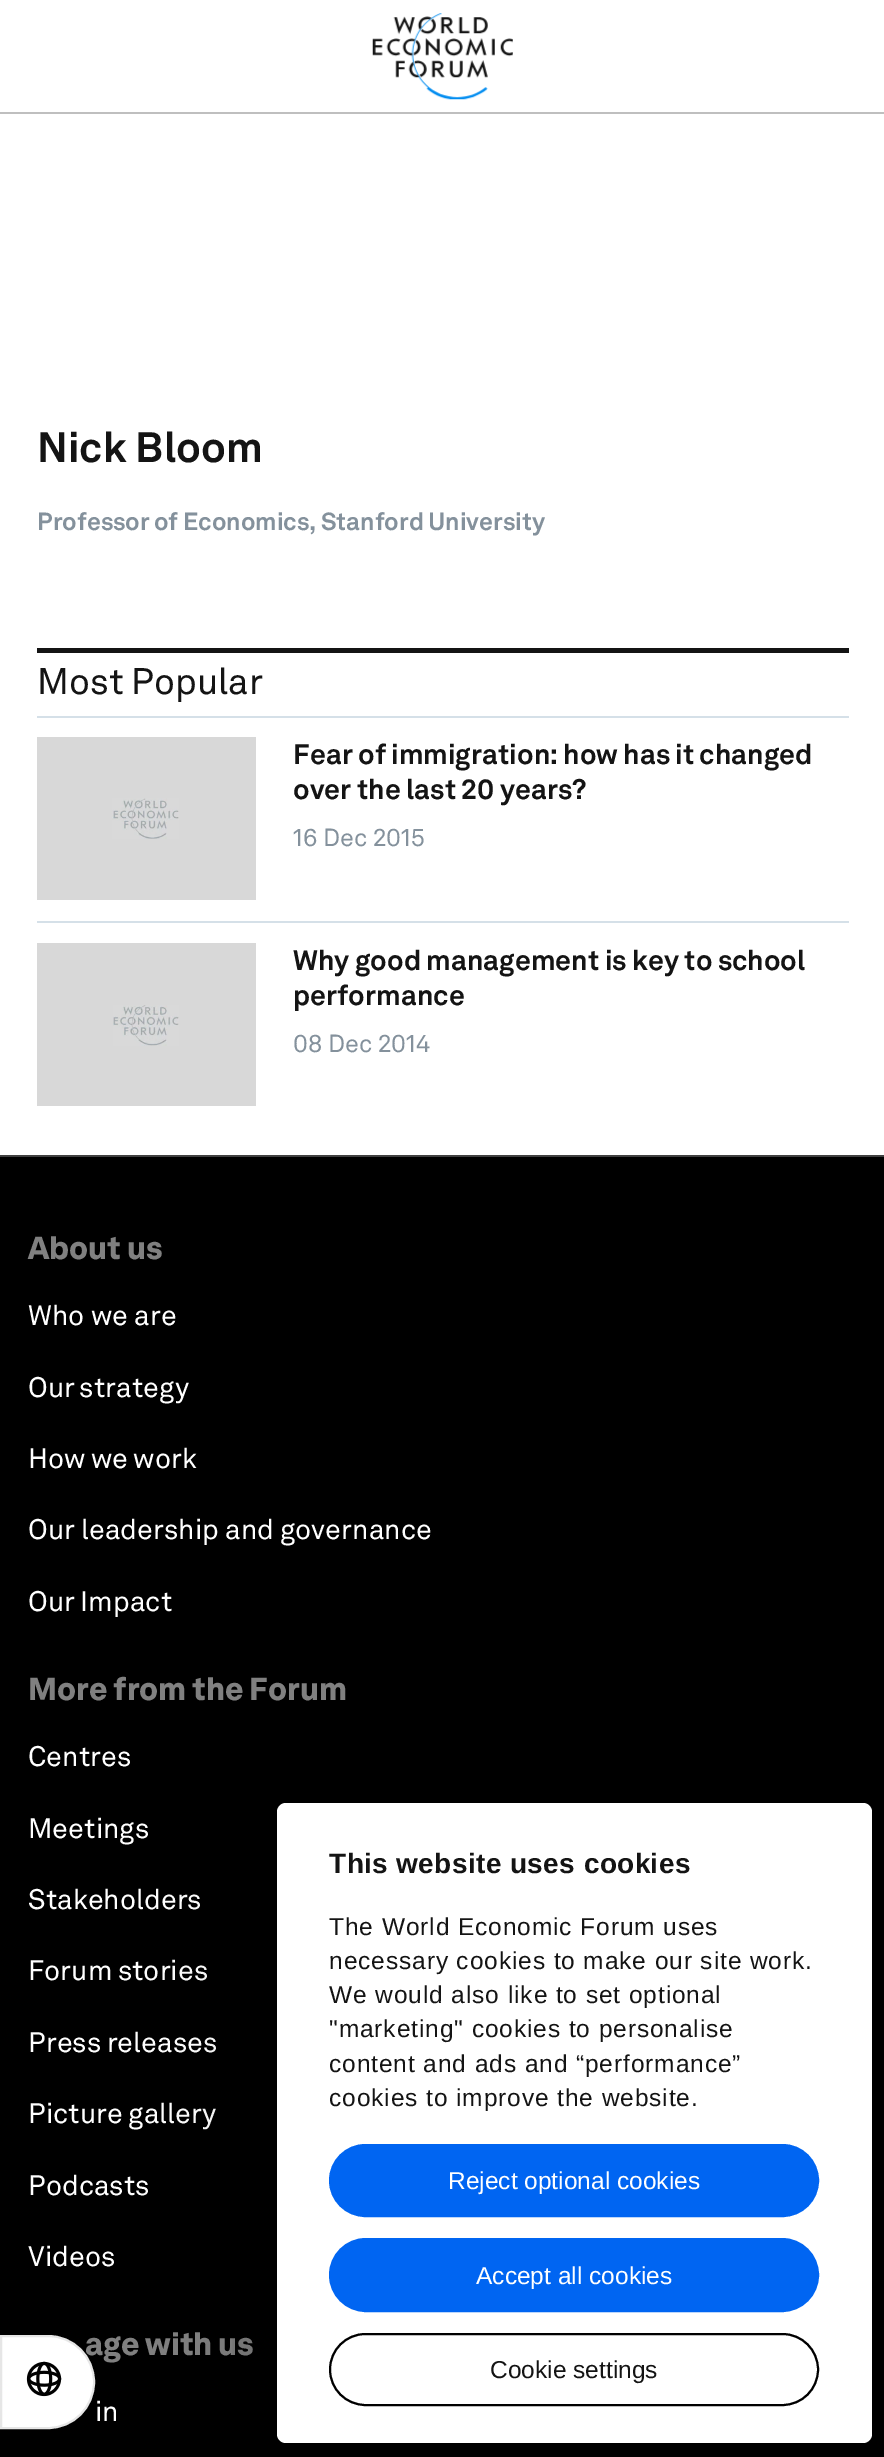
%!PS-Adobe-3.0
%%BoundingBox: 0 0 884 2457
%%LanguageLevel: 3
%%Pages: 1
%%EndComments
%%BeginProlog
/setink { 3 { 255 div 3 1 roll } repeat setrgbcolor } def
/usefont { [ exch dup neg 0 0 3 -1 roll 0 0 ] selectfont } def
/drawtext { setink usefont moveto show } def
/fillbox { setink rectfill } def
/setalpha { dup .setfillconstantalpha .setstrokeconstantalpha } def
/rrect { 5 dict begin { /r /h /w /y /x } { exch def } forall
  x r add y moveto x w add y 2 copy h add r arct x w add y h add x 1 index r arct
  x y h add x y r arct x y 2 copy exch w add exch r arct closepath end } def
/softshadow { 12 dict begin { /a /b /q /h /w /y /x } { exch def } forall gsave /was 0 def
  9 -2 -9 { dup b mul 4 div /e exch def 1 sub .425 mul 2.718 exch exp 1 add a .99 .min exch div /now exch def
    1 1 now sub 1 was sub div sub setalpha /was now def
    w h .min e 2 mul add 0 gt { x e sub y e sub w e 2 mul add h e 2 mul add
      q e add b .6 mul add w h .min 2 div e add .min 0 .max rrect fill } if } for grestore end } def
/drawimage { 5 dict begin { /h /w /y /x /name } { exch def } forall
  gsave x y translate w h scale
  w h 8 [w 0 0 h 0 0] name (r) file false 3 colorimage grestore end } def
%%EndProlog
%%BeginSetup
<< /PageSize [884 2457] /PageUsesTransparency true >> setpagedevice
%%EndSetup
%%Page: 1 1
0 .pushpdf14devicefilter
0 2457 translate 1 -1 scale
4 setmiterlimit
0 0 884 2457 255 255 255 fillbox
0 112 884 2 191 191 191 fillbox
(assets/img1.rgb) 372 13 141 87 drawimage
(Nick Bloom) 37 462 /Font-Bold 42 20 20 20 drawtext
/Font-Bold 24.5 usefont
132 145 156 setink
37 530 moveto -1 0 32 (Professor of Economics, Stanford University) widthshow
37 648 812 5 20 20 20 fillbox
37 716 812 2 213 224 232 fillbox
/Font-Regular 36.5 usefont
20 20 20 setink
37 694 moveto -1 0 32 (Most Popular) widthshow
37 921 812 2 213 224 232 fillbox
37 737 219 163 216 216 216 fillbox
(assets/img2.rgb) 112 798 67 41 drawimage
/Font-Bold 28 usefont
20 20 20 setink
293 764 moveto -0.75 0 32 (Fear of immigration: how has it changed) widthshow
293 799 moveto -0.5 0 32 (over the last 20 years?) widthshow
(16 Dec 2015) 293 846 /Font-Regular 24.5 132 145 156 drawtext
37 943 219 163 216 216 216 fillbox
(assets/img3.rgb) 113 1005 66 41 drawimage
/Font-Bold 28 usefont
20 20 20 setink
293 970 moveto -0.5 0 32 (Why good management is key to school) widthshow
(performance) 293 1005 /Font-Bold 28 20 20 20 drawtext
(08 Dec 2014) 293 1052 /Font-Regular 24.5 132 145 156 drawtext
0 1157 884 1300 0 0 0 fillbox
0 1155 884 2 64 64 64 fillbox
(About us) 28 1259 /Font-Black 31.5 128 128 128 drawtext
(Who we are) 28 1325 /Font-Regular 28 255 255 255 drawtext
28 1397 moveto -2 0 32 (Our strategy) widthshow
28 1468 moveto -1 0 32 (How we work) widthshow
28 1539 moveto -0.5 0 32 (Our leadership and governance) widthshow
28 1611 moveto -1 0 32 (Our Impact) widthshow
/Font-Black 31.5 usefont
128 128 128 setink
28 1700 moveto -0.5 0 32 (More from the Forum) widthshow
(Centres) 28 1766 /Font-Regular 28 255 255 255 drawtext
(Meetings) 28 1838 /Font-Regular 28 255 255 255 drawtext
(Stakeholders) 28 1909 /Font-Regular 28 255 255 255 drawtext
28 1980 moveto -1 0 32 (Forum stories) widthshow
28 2052 moveto -1 0 32 (Press releases) widthshow
28 2123 moveto -1 0 32 (Picture gallery) widthshow
(Podcasts) 28 2195 /Font-Regular 28 255 255 255 drawtext
(Videos) 28 2266 /Font-Regular 28 255 255 255 drawtext
/Font-Black 31.5 usefont
128 128 128 setink
85 2355 moveto -1 0 32 (age with us) widthshow
(in) 95 2421 /Font-Regular 28 255 255 255 drawtext
1 2336 moveto 48 2336 lineto 73.5 2336 94 2356.5 94 2382 curveto 94 2407.5 73.5 2428 48 2428 curveto 1 2428 lineto closepath gsave fill grestore
230 230 230 setink
2 setlinewidth
stroke
(assets/img4.rgb) 26 2361 36 36 drawimage
0 0 0 setink
277 1859 595 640 9 59.5 0.3 softshadow
255 255 255 setink
277 1803 595 640 9 rrect fill
/LiberationSans-Bold 28 usefont
20 20 20 setink
329 1873 moveto 0.4 0 (This website uses cookies) ashow
/LiberationSans-Regular 24.5 usefont
329 1935 moveto 0.9 0 (The World Economic Forum uses) ashow
329 1969 moveto 0.9 0 (necessary cookies to make our site work.) ashow
329 2003 moveto 0.9 0 (We would also like to set optional) ashow
329 2037 moveto 0.9 0 ("marketing" cookies to personalise) ashow
329 2072 moveto 0.9 0 (content and ads and “performance”) ashow
329 2106 moveto 0.9 0 (cookies to improve the website.) ashow
0 101 242 setink
330 2145 488 71 35.5 rrect gsave fill grestore
stroke
(Reject optional cookies) 448 2189 /LiberationSans-Regular 24.5 255 255 255 drawtext
0 101 242 setink
330 2239 488 72 36 rrect gsave fill grestore
stroke
(Accept all cookies) 476 2284 /LiberationSans-Regular 24.5 255 255 255 drawtext
0 0 0 setink
330 2334 488 71 35.5 rrect stroke
(Cookie settings) 490 2378 /LiberationSans-Regular 24.5 20 20 20 drawtext
.poppdf14devicefilter showpage
%%EOF
